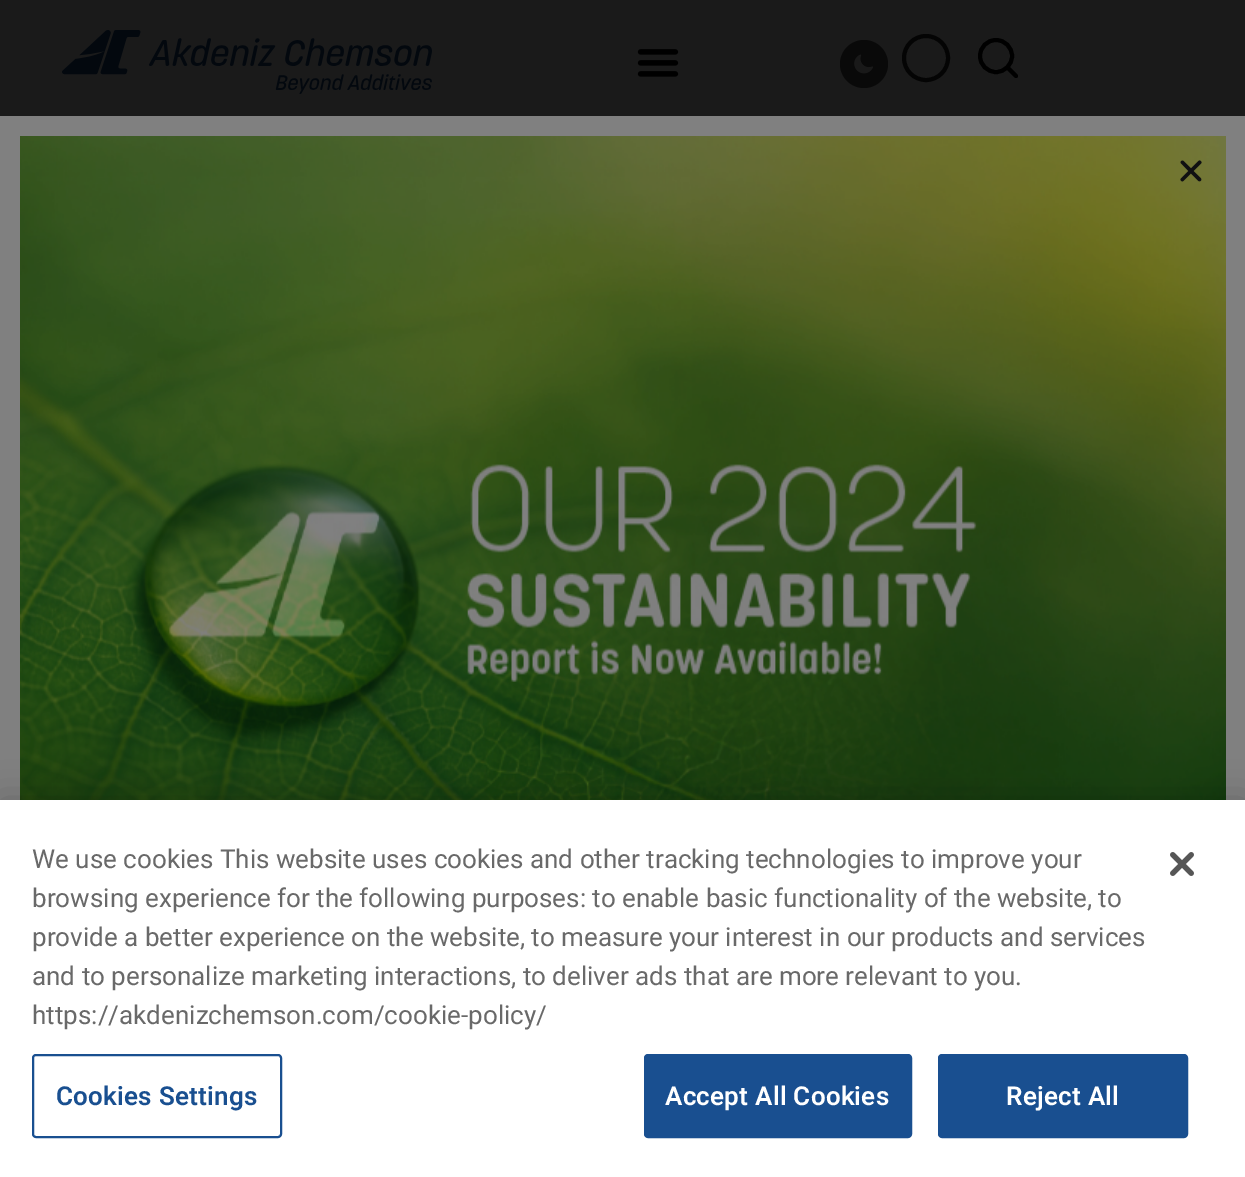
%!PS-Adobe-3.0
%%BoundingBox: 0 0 1245 1177
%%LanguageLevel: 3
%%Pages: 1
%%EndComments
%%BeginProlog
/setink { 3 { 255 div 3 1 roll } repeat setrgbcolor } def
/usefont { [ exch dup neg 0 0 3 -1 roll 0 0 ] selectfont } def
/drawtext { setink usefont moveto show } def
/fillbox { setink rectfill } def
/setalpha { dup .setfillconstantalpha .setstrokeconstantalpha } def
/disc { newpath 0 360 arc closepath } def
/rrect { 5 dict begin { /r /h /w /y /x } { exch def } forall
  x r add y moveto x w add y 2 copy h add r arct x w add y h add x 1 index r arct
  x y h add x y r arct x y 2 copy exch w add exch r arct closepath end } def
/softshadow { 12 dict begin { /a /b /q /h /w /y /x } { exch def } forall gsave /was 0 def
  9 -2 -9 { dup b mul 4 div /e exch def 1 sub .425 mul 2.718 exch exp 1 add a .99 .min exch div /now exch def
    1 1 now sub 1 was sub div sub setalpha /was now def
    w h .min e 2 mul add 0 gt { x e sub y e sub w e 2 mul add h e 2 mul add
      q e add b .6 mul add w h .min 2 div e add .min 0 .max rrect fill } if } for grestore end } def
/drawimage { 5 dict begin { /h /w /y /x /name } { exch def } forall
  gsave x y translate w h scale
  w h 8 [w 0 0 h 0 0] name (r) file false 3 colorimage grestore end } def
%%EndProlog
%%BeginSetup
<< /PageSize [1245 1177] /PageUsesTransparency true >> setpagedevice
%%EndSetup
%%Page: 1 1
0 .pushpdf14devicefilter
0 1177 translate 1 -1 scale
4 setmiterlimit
0 0 1245 1177 26 26 26 fillbox
(assets/img1.rgb) 62 30 370 64 drawimage
(assets/img2.rgb) 637 49 42 28 drawimage
9 9 9 setink
864 64 24 disc fill
(assets/img3.rgb) 854 54 19 20 drawimage
4 4 4 setink
4 setlinewidth
926 58 22 disc stroke
0 0 0 setink
996 56 16 disc stroke
1 setlinecap
1 setlinejoin
1016 76 moveto 1007.5 67.5 lineto stroke
0 116 1245 684 128 128 128 fillbox
(assets/img4.rgb) 20 136 1206 664 drawimage
(assets/img5.rgb) 1180 160 22 22 drawimage
0 0 0 setink
0 800 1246 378 0 18 0.2 softshadow
0 800 1245 377 255 255 255 fillbox
(We use cookies This website uses cookies and other tracking technologies to improve your) 32 868 /Roboto-Regular 26 105 105 105 drawtext
(browsing experience for the following purposes: to enable basic functionality of the website, to) 32 907 /Roboto-Regular 26 105 105 105 drawtext
(provide a better experience on the website, to measure your interest in our products and services) 32 946 /Roboto-Regular 26 105 105 105 drawtext
(and to personalize marketing interactions, to deliver ads that are more relevant to you.) 32 985 /Roboto-Regular 26 105 105 105 drawtext
(https://akdenizchemson.com/cookie-policy/) 32 1024 /Roboto-Regular 26 105 105 105 drawtext
25 79 144 setink
2 setlinewidth
0 setlinecap
0 setlinejoin
33 1055 248 82 3 rrect stroke
/Roboto-SemiBold 26 usefont
56 1105 moveto 0.25 0 (Cookies Settings) ashow
645 1055 266 82 3 rrect gsave fill grestore
stroke
255 255 255 setink
665 1105 moveto 0.25 0 (Accept All Cookies) ashow
25 79 144 setink
939 1055 248 82 3 rrect gsave fill grestore
stroke
255 255 255 setink
1006 1105 moveto 0.25 0 (Reject All) ashow
(assets/img6.rgb) 1170 852 24 24 drawimage
.poppdf14devicefilter showpage
%%EOF
